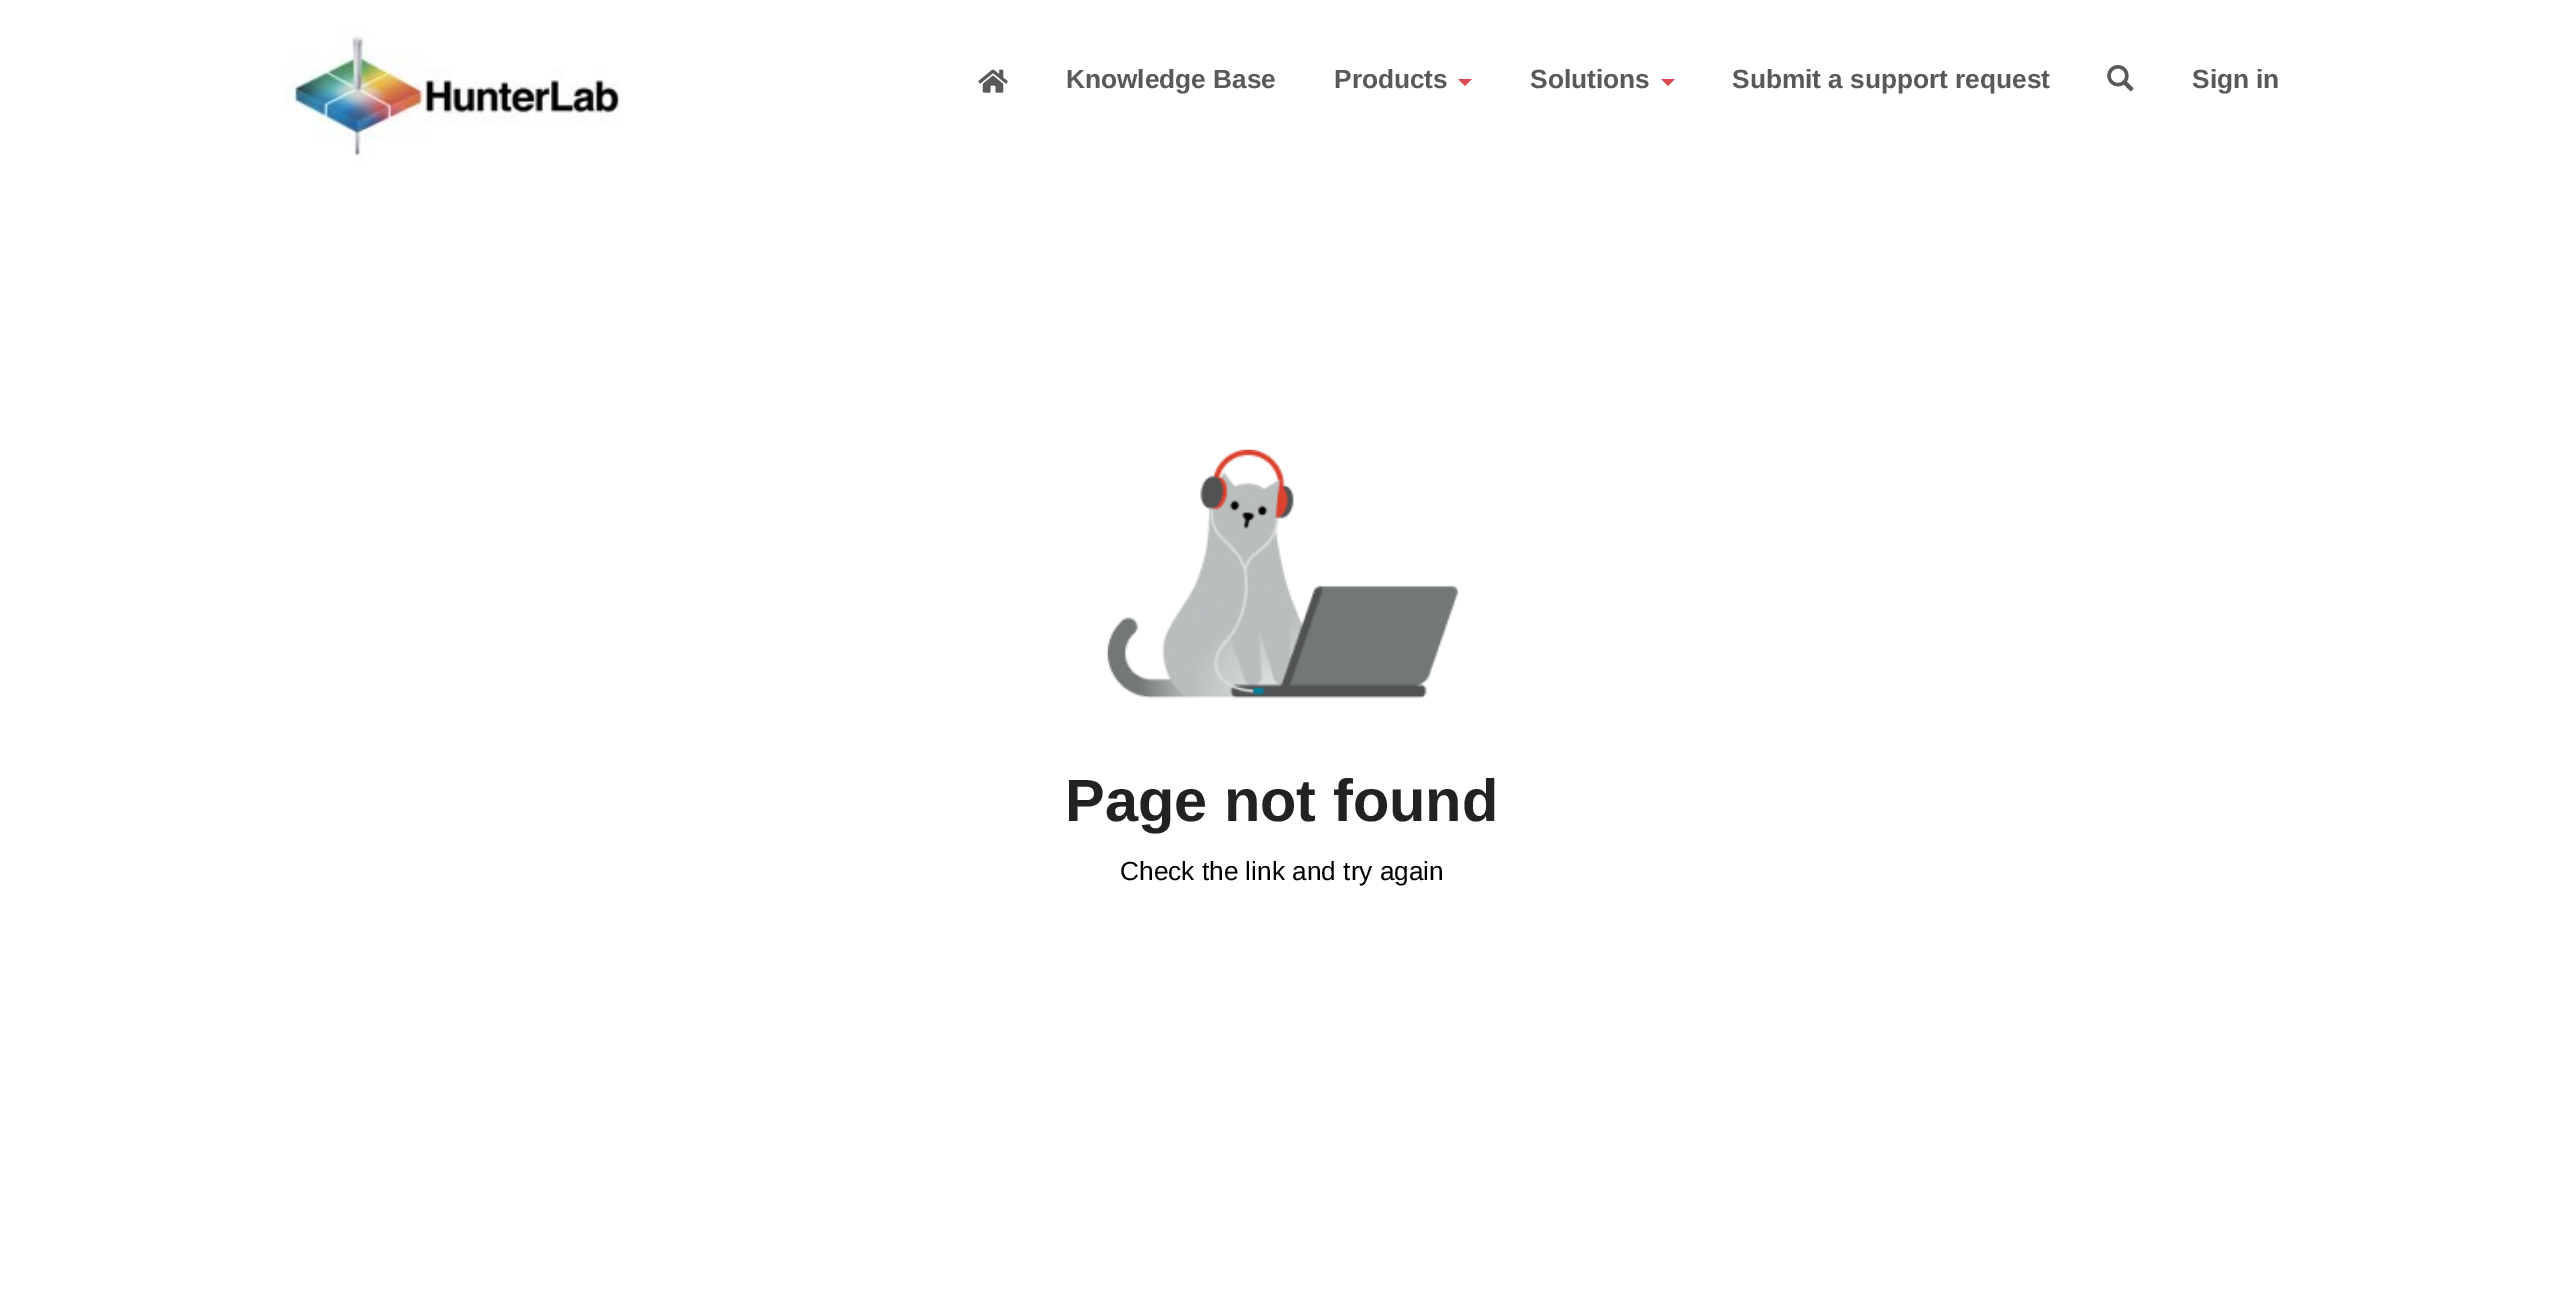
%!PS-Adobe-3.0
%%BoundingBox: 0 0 2563 1294
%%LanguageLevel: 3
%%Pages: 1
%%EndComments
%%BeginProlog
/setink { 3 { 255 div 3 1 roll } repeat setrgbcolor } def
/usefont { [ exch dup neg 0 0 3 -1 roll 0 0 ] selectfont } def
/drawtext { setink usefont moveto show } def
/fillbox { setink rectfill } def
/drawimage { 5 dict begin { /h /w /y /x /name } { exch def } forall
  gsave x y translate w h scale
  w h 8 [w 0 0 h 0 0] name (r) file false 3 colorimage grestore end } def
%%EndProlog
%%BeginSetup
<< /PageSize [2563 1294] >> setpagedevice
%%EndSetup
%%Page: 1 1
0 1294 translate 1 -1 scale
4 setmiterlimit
0 0 2563 1294 255 255 255 fillbox
(assets/img1.rgb) 285 28 336 135 drawimage
(assets/img2.rgb) 978 69 30 24 drawimage
(Knowledge Base) 1066 88 /LiberationSans-Bold 26.25 89 89 89 drawtext
(Products) 1334 88 /LiberationSans-Bold 26.25 89 89 89 drawtext
220 74 80 setink
1458 79 moveto 1472 79 lineto 1465 86 lineto closepath fill
(Solutions) 1530 88 /LiberationSans-Bold 26.25 89 89 89 drawtext
220 74 80 setink
1661 79 moveto 1675 79 lineto 1668 86 lineto closepath fill
(Submit a support request) 1732 88 /LiberationSans-Bold 26.25 89 89 89 drawtext
(assets/img3.rgb) 2107 65 27 27 drawimage
(Sign in) 2192 88 /LiberationSans-Bold 26.25 89 89 89 drawtext
(assets/img4.rgb) 1107 449 351 250 drawimage
(Page not found) 1065 821 /LiberationSans-Bold 59.5 35 34 34 drawtext
(Check the link and try again) 1120 880 /LiberationSans-Regular 26.25 0 0 0 drawtext
showpage
%%EOF
